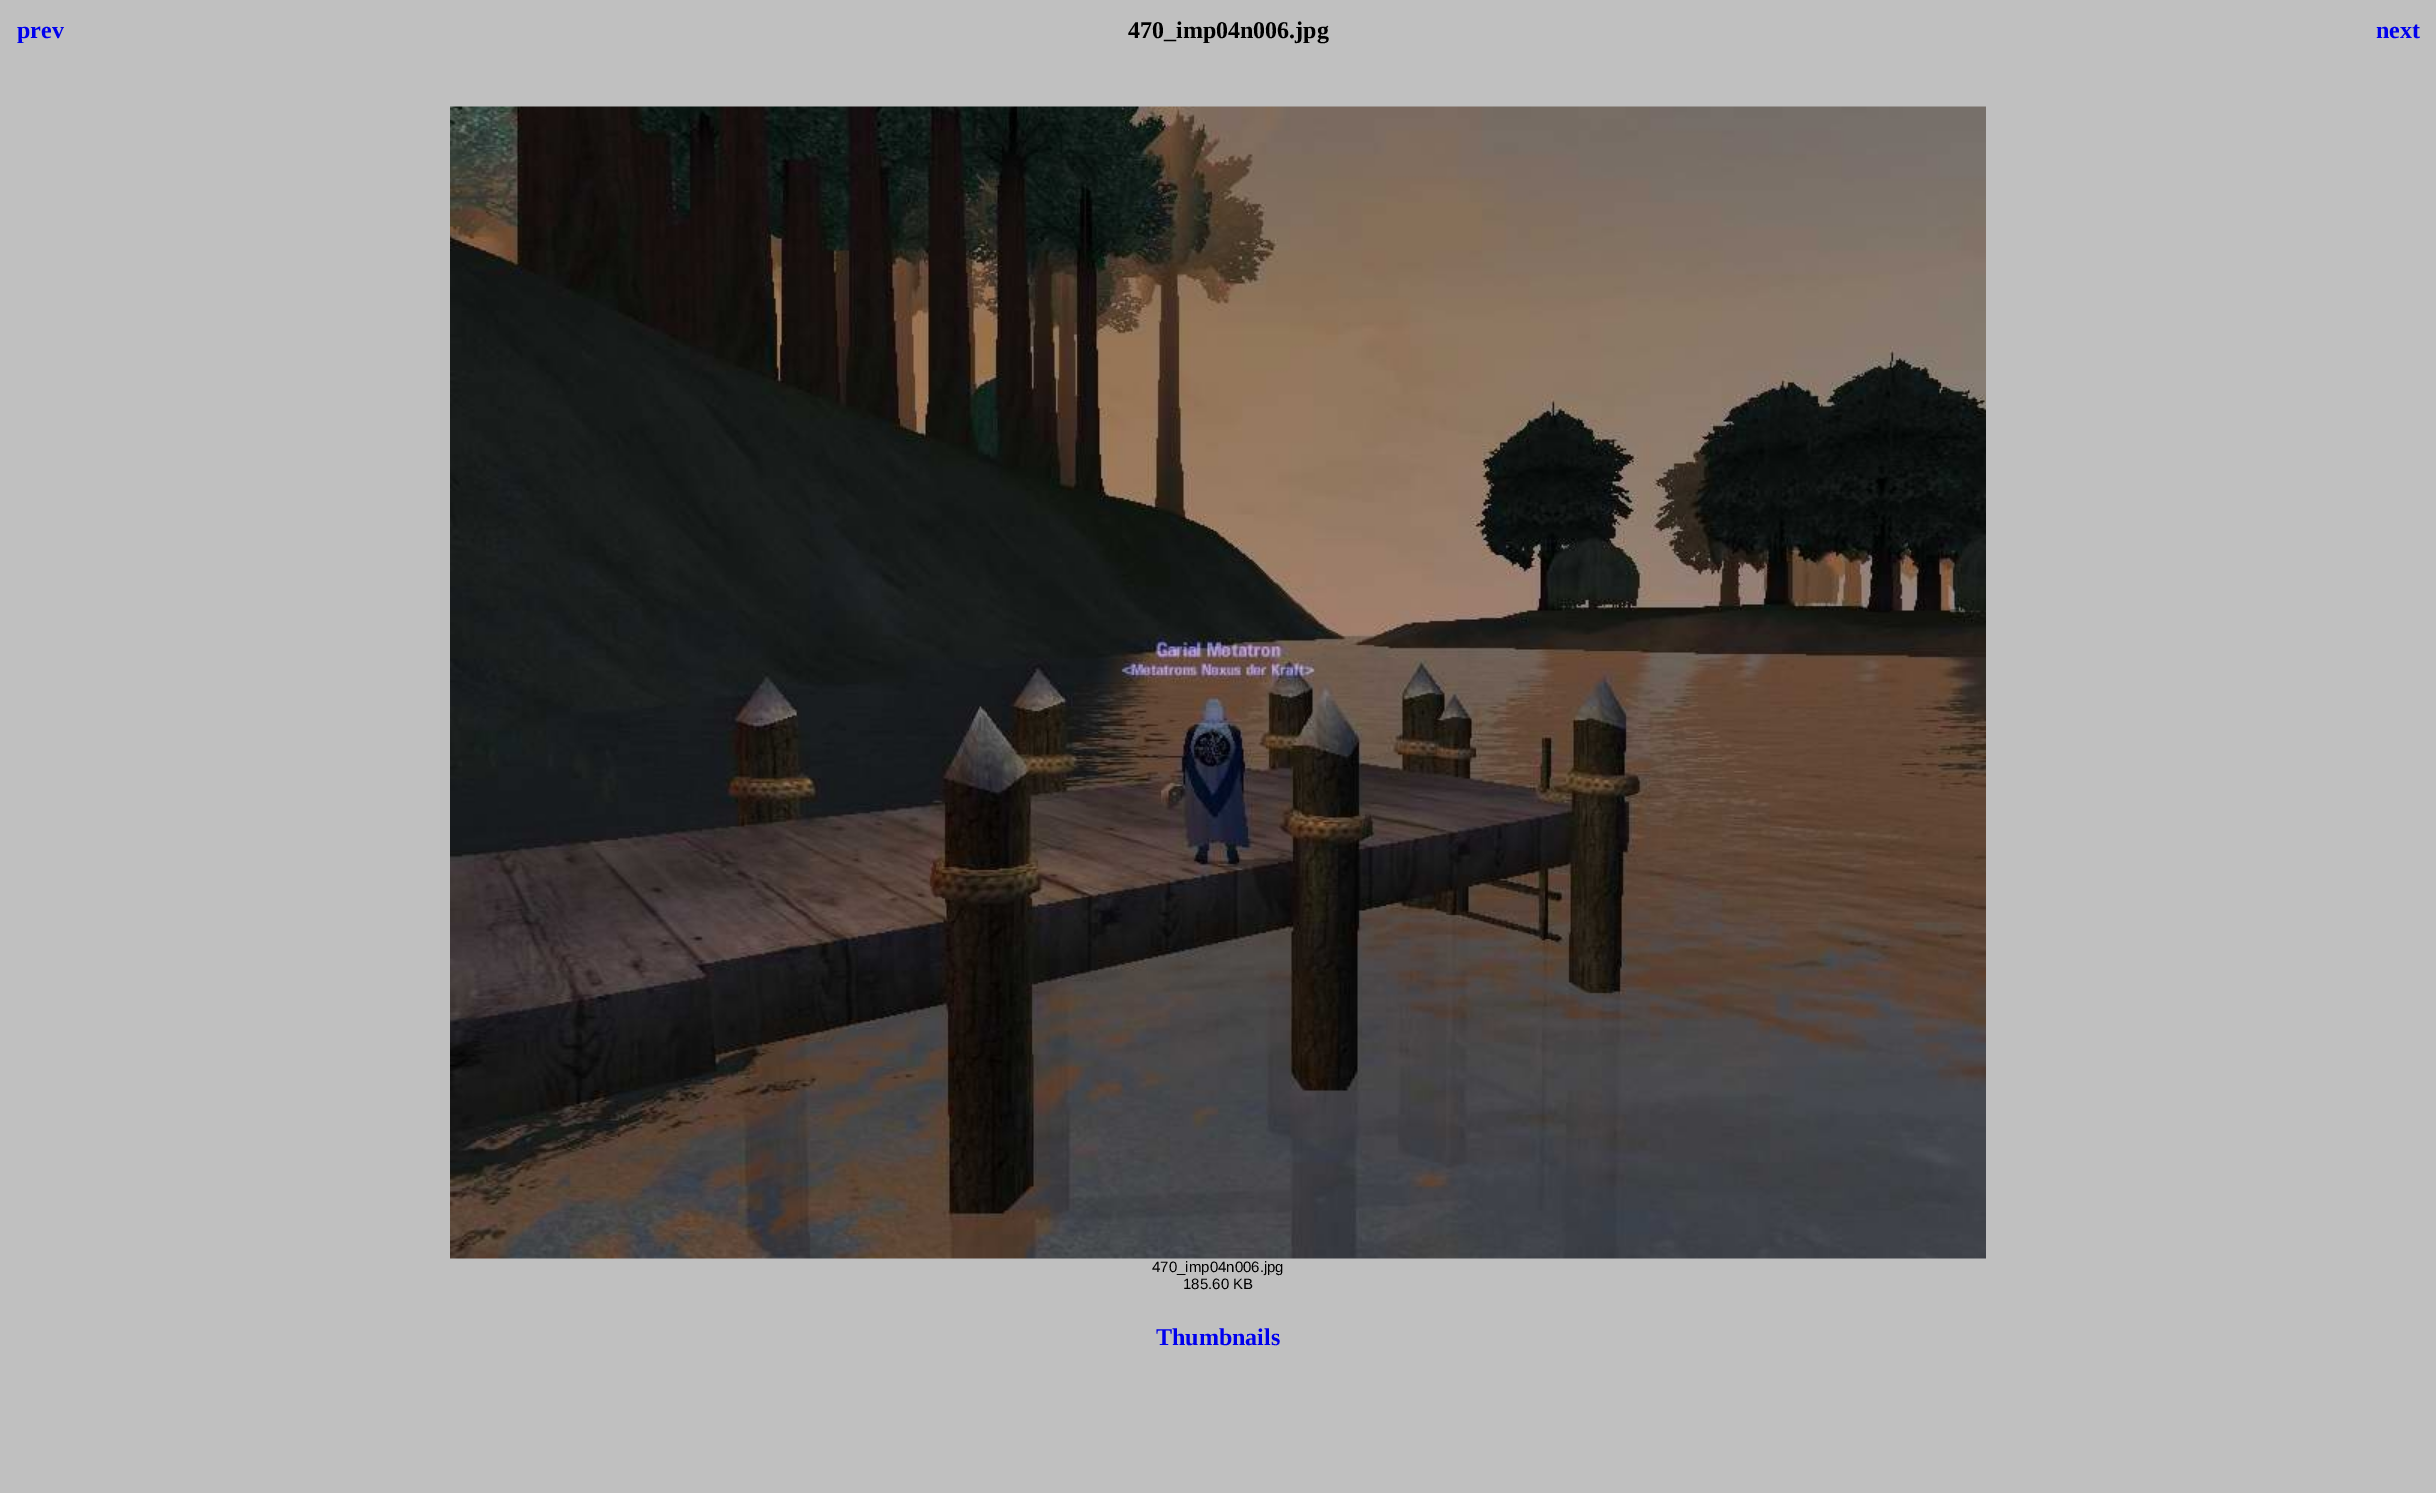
%!PS-Adobe-3.0
%%BoundingBox: 0 0 2436 1493
%%LanguageLevel: 3
%%Pages: 1
%%EndComments
%%BeginProlog
/setink { 3 { 255 div 3 1 roll } repeat setrgbcolor } def
/usefont { [ exch dup neg 0 0 3 -1 roll 0 0 ] selectfont } def
/drawtext { setink usefont moveto show } def
/fillbox { setink rectfill } def
/drawimage { 5 dict begin { /h /w /y /x /name } { exch def } forall
  gsave x y translate w h scale
  w h 8 [w 0 0 h 0 0] name (r) file false 3 colorimage grestore end } def
%%EndProlog
%%BeginSetup
<< /PageSize [2436 1493] >> setpagedevice
%%EndSetup
%%Page: 1 1
0 1493 translate 1 -1 scale
4 setmiterlimit
0 0 2436 1493 192 192 192 fillbox
(prev) 17 38 /LiberationSerif-Bold 24 0 0 238 drawtext
(470_imp04n006.jpg) 1128 38 /LiberationSerif-Bold 24 0 0 0 drawtext
(next) 2376 38 /LiberationSerif-Bold 24 0 0 238 drawtext
(assets/img1.rgb) 450 106 1536 1153 drawimage
(470_imp04n006.jpg) 1152 1272 /LiberationSans-Regular 15 0 0 0 drawtext
(185.60 KB) 1183 1289 /LiberationSans-Regular 15 0 0 0 drawtext
(Thumbnails) 1156 1345 /LiberationSerif-Bold 24 0 0 238 drawtext
showpage
%%EOF
